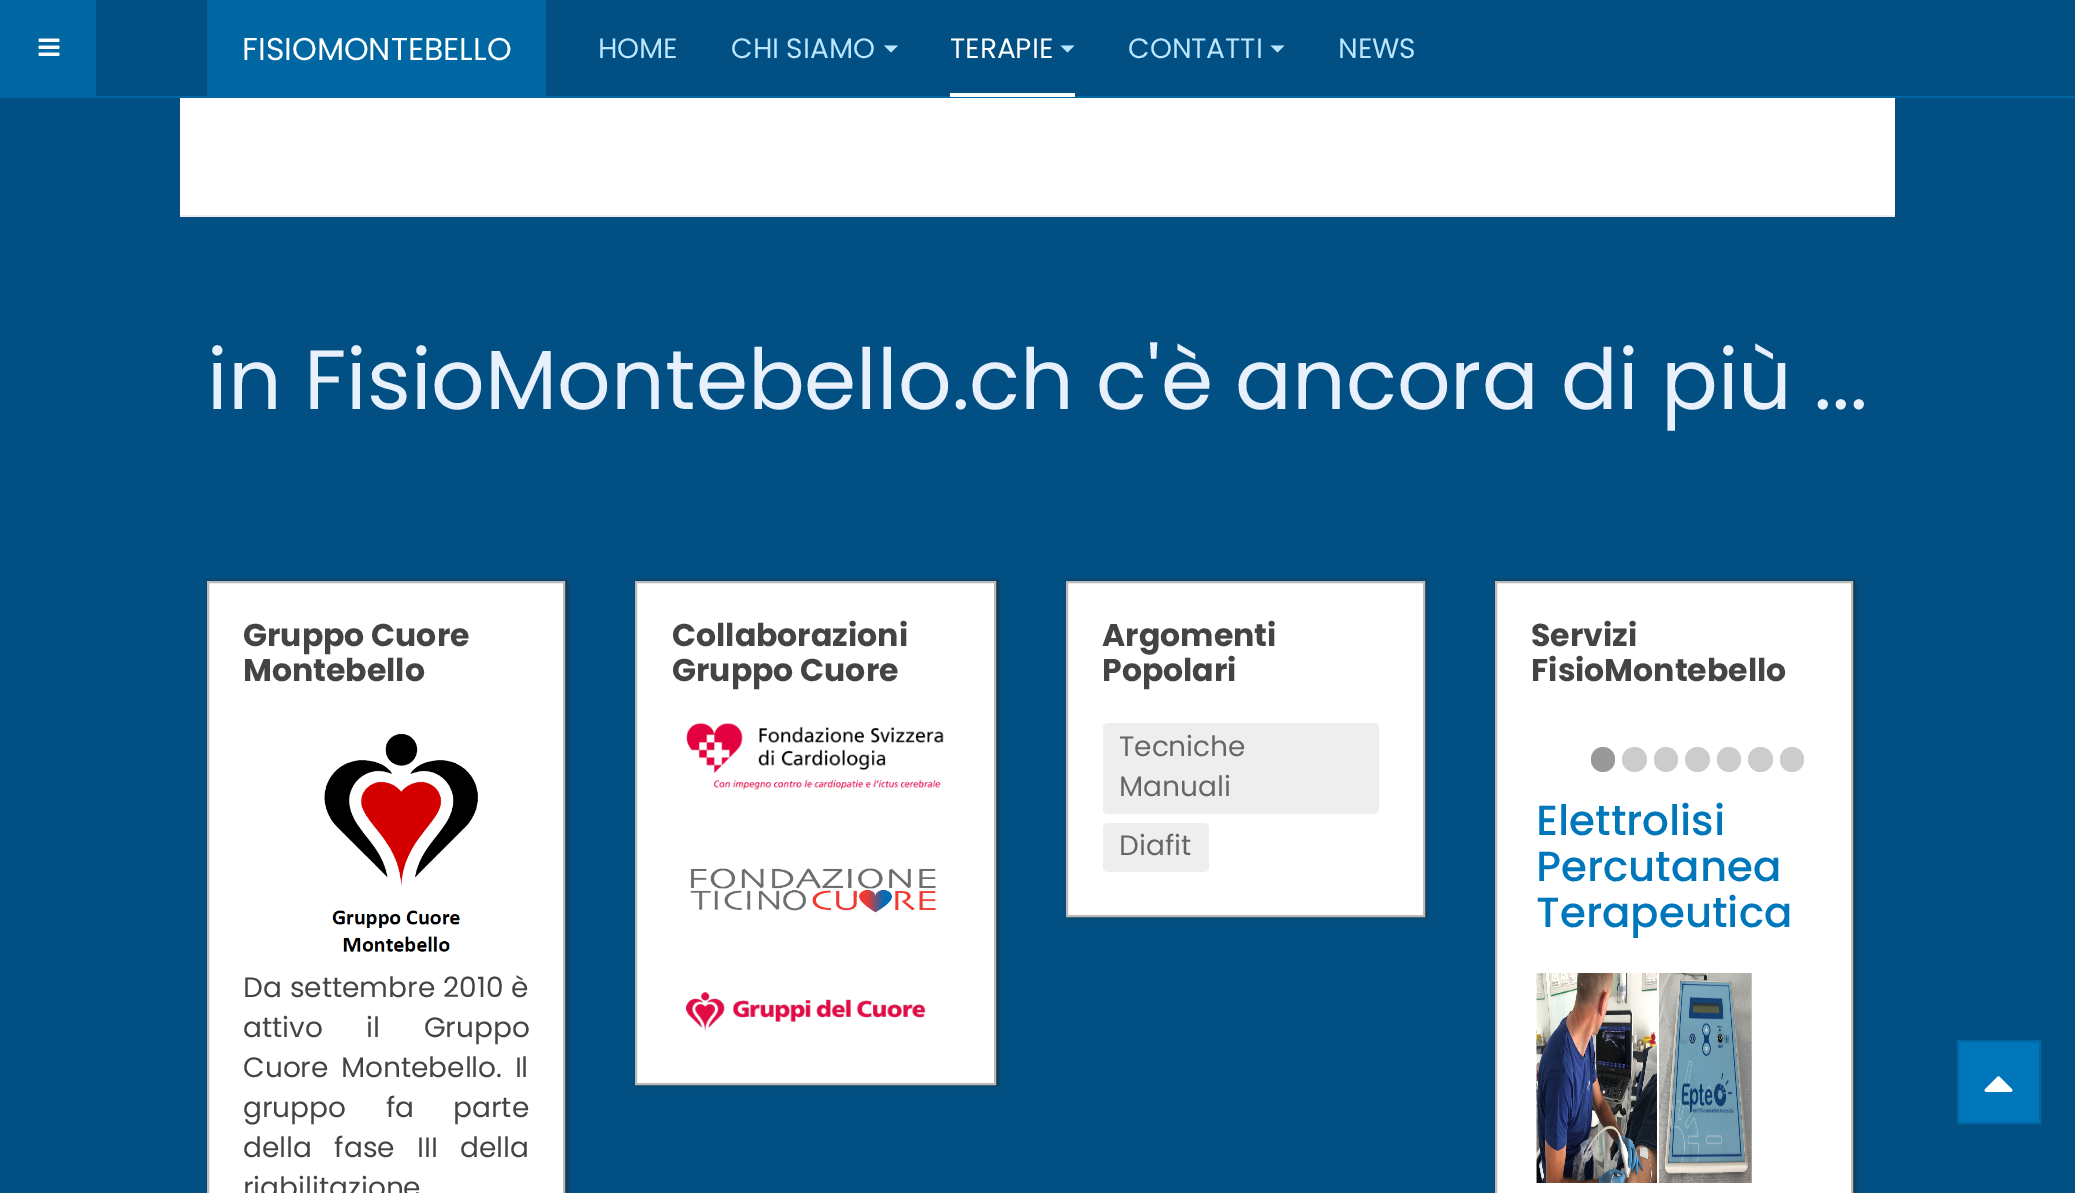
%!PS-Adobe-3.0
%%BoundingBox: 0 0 2075 1193
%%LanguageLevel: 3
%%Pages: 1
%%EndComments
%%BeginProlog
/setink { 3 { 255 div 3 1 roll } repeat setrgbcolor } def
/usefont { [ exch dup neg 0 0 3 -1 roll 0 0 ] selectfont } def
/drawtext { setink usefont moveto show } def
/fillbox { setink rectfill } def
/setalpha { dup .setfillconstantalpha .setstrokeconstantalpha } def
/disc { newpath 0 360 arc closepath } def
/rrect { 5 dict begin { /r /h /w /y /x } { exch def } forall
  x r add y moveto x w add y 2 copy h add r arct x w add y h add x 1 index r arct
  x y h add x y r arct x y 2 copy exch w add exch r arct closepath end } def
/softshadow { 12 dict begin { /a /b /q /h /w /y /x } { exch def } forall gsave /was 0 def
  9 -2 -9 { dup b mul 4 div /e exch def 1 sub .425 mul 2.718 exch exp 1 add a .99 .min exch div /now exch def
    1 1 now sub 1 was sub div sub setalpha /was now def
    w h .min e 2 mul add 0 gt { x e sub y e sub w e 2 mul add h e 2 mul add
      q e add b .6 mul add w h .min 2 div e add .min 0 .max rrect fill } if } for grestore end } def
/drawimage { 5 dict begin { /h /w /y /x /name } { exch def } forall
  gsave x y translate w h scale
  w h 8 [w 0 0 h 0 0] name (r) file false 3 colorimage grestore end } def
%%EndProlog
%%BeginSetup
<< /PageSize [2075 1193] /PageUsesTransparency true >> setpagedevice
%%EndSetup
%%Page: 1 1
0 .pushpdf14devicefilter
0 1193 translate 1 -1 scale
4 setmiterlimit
0 0 2075 1193 255 255 255 fillbox
gsave 0 98 moveto 2075 98 lineto 2075 1193 lineto 0 1193 lineto closepath clip newpath
<< /ShadingType 2 /ColorSpace /DeviceRGB /Coords [1038 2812 1038 -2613] /Extend [true true] /Function << /FunctionType 3 /Domain [0 1] /Functions [<< /FunctionType 2 /Domain [0 1] /C0 [0.008 0.314 0.514] /C1 [0.008 0.314 0.514] /N 1 >> << /FunctionType 2 /Domain [0 1] /C0 [0.008 0.314 0.514] /C1 [1 1 1] /N 1 >>] /Bounds [0.5] /Encode [0 1 0 1] >> >> shfill grestore
96 0 1979 96 2 80 131 fillbox
0 96 2075 2 0 103 162 fillbox
0 0 96 96 0 103 162 fillbox
(assets/img1.rgb) 38 38 22 18 drawimage
207 0 339 96 0 103 162 fillbox
(FISIOMONTEBELLO) 242 60 /Poppins-Regular 31.5 255 255 255 drawtext
(HOME) 598 58 /Poppins-Regular 28 187 230 255 drawtext
(CHI SIAMO) 731 58 /Poppins-Regular 28 187 230 255 drawtext
884 45.5 moveto 898 45.5 lineto 891 52.5 lineto closepath fill
950 93 125 4 255 255 255 fillbox
(TERAPIE) 950 58 /Poppins-Regular 28 255 255 255 drawtext
187 230 255 setink
1060.5 45.5 moveto 1074.5 45.5 lineto 1067.5 52.5 lineto closepath fill
(CONTATTI) 1128 58 /Poppins-Regular 28 187 230 255 drawtext
1270.5 45.5 moveto 1284.5 45.5 lineto 1277.5 52.5 lineto closepath fill
(NEWS) 1338 58 /Poppins-Regular 28 187 230 255 drawtext
180 98 1715 117 255 255 255 fillbox
180 215 1715 2 238 238 238 fillbox
(in FisioMontebello.ch c'è ancora di più ...) 207 409 /Poppins-Regular 84 232 241 251 drawtext
33 33 33 setink
208 581 359 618 0 2 0.75 softshadow
255 255 255 setink
208 582 moveto 564 582 lineto 564 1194 lineto 208 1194 lineto closepath gsave fill grestore
187 187 187 setink
2 setlinewidth
stroke
(Gruppo Cuore) 243 646 /Poppins-Bold 31.5 68 68 68 drawtext
(Montebello) 243 681 /Poppins-Bold 31.5 68 68 68 drawtext
(assets/img2.rgb) 324 733 154 219 drawimage
/Poppins-Regular 28 usefont
243 997 moveto 0.5 0 32 (Da settembre 2010 è) widthshow
243 1037 moveto 36 0 32 (attivo il Gruppo) widthshow
243 1077 moveto 5 0 32 (Cuore Montebello. Il) widthshow
243 1117 moveto 32 0 32 (gruppo fa parte) widthshow
243 1157 moveto 15 0 32 (della fase III della) widthshow
(riabilitazione) 243 1197 /Poppins-Regular 28 68 68 68 drawtext
33 33 33 setink
637 581 361 504 0 2 0.75 softshadow
255 255 255 setink
636 582 moveto 995 582 lineto 995 1084 lineto 636 1084 lineto closepath gsave fill grestore
187 187 187 setink
stroke
(Collaborazioni) 672 646 /Poppins-Bold 31.5 68 68 68 drawtext
(Gruppo Cuore) 672 681 /Poppins-Bold 31.5 68 68 68 drawtext
(assets/img3.rgb) 686 722 258 68 drawimage
(assets/img4.rgb) 690 868 246 45 drawimage
(assets/img5.rgb) 686 992 240 39 drawimage
33 33 33 setink
1068 581 358 336 0 2 0.75 softshadow
255 255 255 setink
1067 582 moveto 1424 582 lineto 1424 916 lineto 1067 916 lineto closepath gsave fill grestore
187 187 187 setink
stroke
(Argomenti) 1102 646 /Poppins-Bold 31.5 68 68 68 drawtext
(Popolari) 1102 681 /Poppins-Bold 31.5 68 68 68 drawtext
238 238 238 setink
1103 723 276 91 5 rrect fill
(Tecniche) 1119 756 /Poppins-Regular 28 102 102 102 drawtext
(Manuali) 1119 796 /Poppins-Regular 28 102 102 102 drawtext
238 238 238 setink
1103 823 106 49 5 rrect fill
(Diafit) 1119 855 /Poppins-Regular 28 102 102 102 drawtext
33 33 33 setink
1496 581 359 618 0 2 0.75 softshadow
255 255 255 setink
1496 582 moveto 1852 582 lineto 1852 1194 lineto 1496 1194 lineto closepath gsave fill grestore
187 187 187 setink
stroke
(Servizi) 1531 646 /Poppins-Bold 31.5 68 68 68 drawtext
(FisioMontebello) 1531 681 /Poppins-Bold 31.5 68 68 68 drawtext
153 153 153 setink
1591 747 24 25 12 rrect fill
204 204 204 setink
1634.5 759.5 12.5 disc fill
1654 747 24 25 12 rrect fill
1697.5 759.5 12.5 disc fill
1717 747 24 25 12 rrect fill
1760.5 759.5 12.5 disc fill
1780 747 24 25 12 rrect fill
(Elettrolisi) 1536 835 /Poppins-Medium 42 0 119 187 drawtext
(Percutanea) 1536 881 /Poppins-Medium 42 0 119 187 drawtext
(Terapeutica) 1536 927 /Poppins-Medium 42 0 119 187 drawtext
(assets/img6.rgb) 1536 973 216 210 drawimage
1958 1041 moveto 2040 1041 lineto 2040 1123 lineto 1958 1123 lineto closepath gsave fill grestore
0 103 162 setink
stroke
(assets/img7.rgb) 1984 1076 29 16 drawimage
.poppdf14devicefilter showpage
%%EOF
